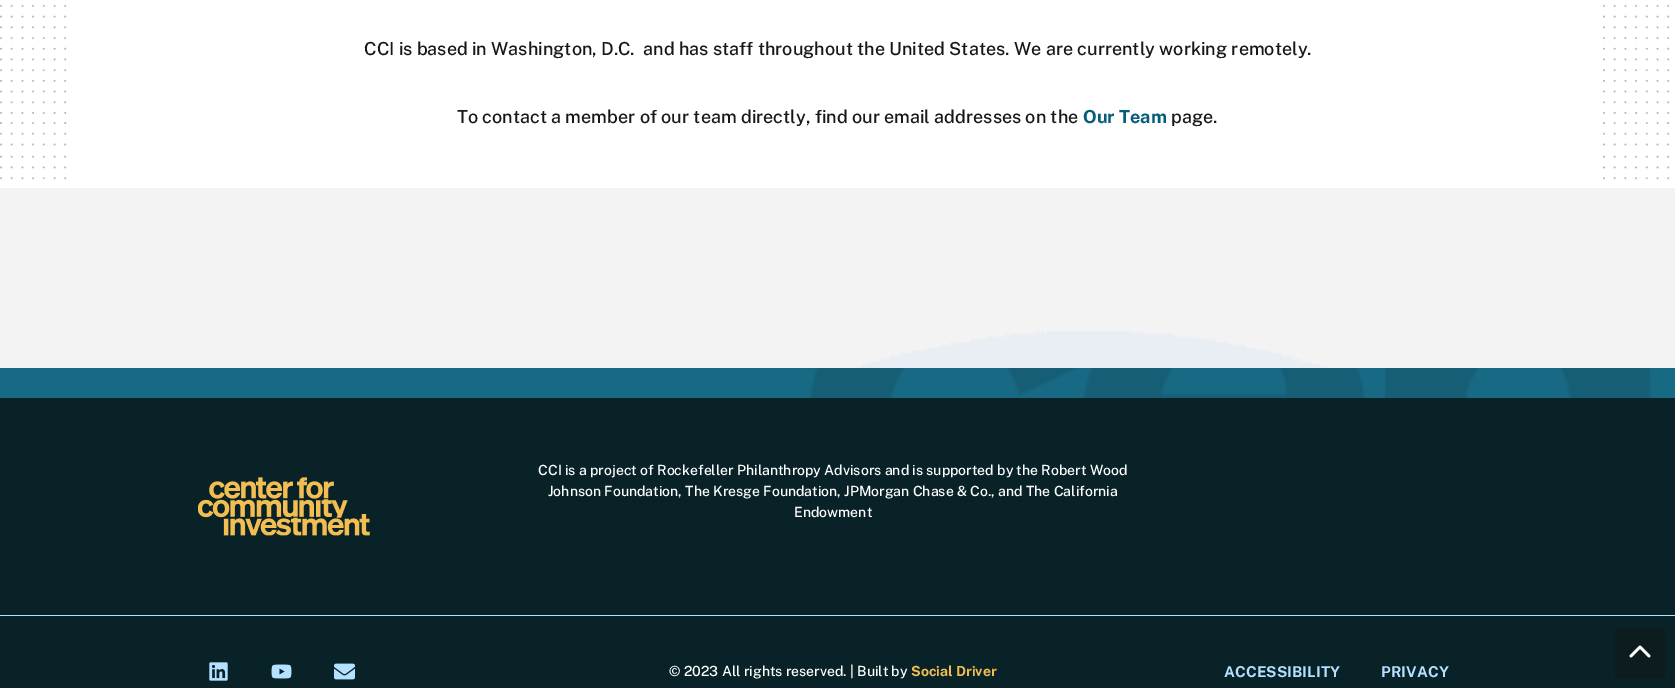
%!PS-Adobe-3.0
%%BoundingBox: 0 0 1675 688
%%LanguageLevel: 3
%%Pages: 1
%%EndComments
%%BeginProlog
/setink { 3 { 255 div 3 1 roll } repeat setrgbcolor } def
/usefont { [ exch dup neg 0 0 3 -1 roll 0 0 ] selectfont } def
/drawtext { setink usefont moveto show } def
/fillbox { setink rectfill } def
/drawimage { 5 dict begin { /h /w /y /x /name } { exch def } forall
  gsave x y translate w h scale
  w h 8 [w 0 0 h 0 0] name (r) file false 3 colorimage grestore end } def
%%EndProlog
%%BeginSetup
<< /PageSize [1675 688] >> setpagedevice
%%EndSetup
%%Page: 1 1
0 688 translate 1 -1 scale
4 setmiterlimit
0 0 1675 688 8 34 39 fillbox
0 188 1675 180 243 243 243 fillbox
0 368 1675 30 24 105 132 fillbox
72 0 1531 188 255 255 255 fillbox
(assets/img1.rgb) 0 0 1675 188 drawimage
(CCI is based in Washington, D.C.  and has staff throughout the United States. We are currently working remotely.) 364 55 /PublicSans-Medium 18 23 24 25 drawtext
(To contact a member of our team directly, find our email addresses on the) 457 123 /PublicSans-Medium 18 23 24 25 drawtext
(Our Team) 1083 123 /PublicSans-Bold 18 5 93 121 drawtext
(page.) 1171 123 /PublicSans-Medium 18 23 24 25 drawtext
(assets/img2.rgb) 854 331 474 37 drawimage
(assets/img3.rgb) 808 368 845 30 drawimage
(assets/img4.rgb) 198 477 172 59 drawimage
(CCI is a project of Rockefeller Philanthropy Advisors and is supported by the Robert Wood) 538 475 /PublicSans-Medium 14 255 255 255 drawtext
(Johnson Foundation, The Kresge Foundation, JPMorgan Chase & Co., and The California) 548 496 /PublicSans-Medium 14 255 255 255 drawtext
(Endowment) 794 517 /PublicSans-Medium 14 255 255 255 drawtext
0 615 1675 1 180 225 255 fillbox
(assets/img5.rgb) 209 662 19 19 drawimage
(assets/img6.rgb) 271 664 21 15 drawimage
(assets/img7.rgb) 334 663 21 17 drawimage
(© 2023 All rights reserved. | Built by) 669 676 /PublicSans-Medium 14 255 255 255 drawtext
(Social Driver) 911 676 /PublicSans-Bold 14 242 189 81 drawtext
/PublicSans-Bold 15 usefont
180 225 255 setink
1224 677 moveto 0.1 0 (ACCESSIBILITY) ashow
1381 677 moveto 0.1 0 (PRIVACY) ashow
1615 628 50 50 13 28 31 fillbox
(assets/img8.rgb) 1629 645 22 13 drawimage
showpage
%%EOF
